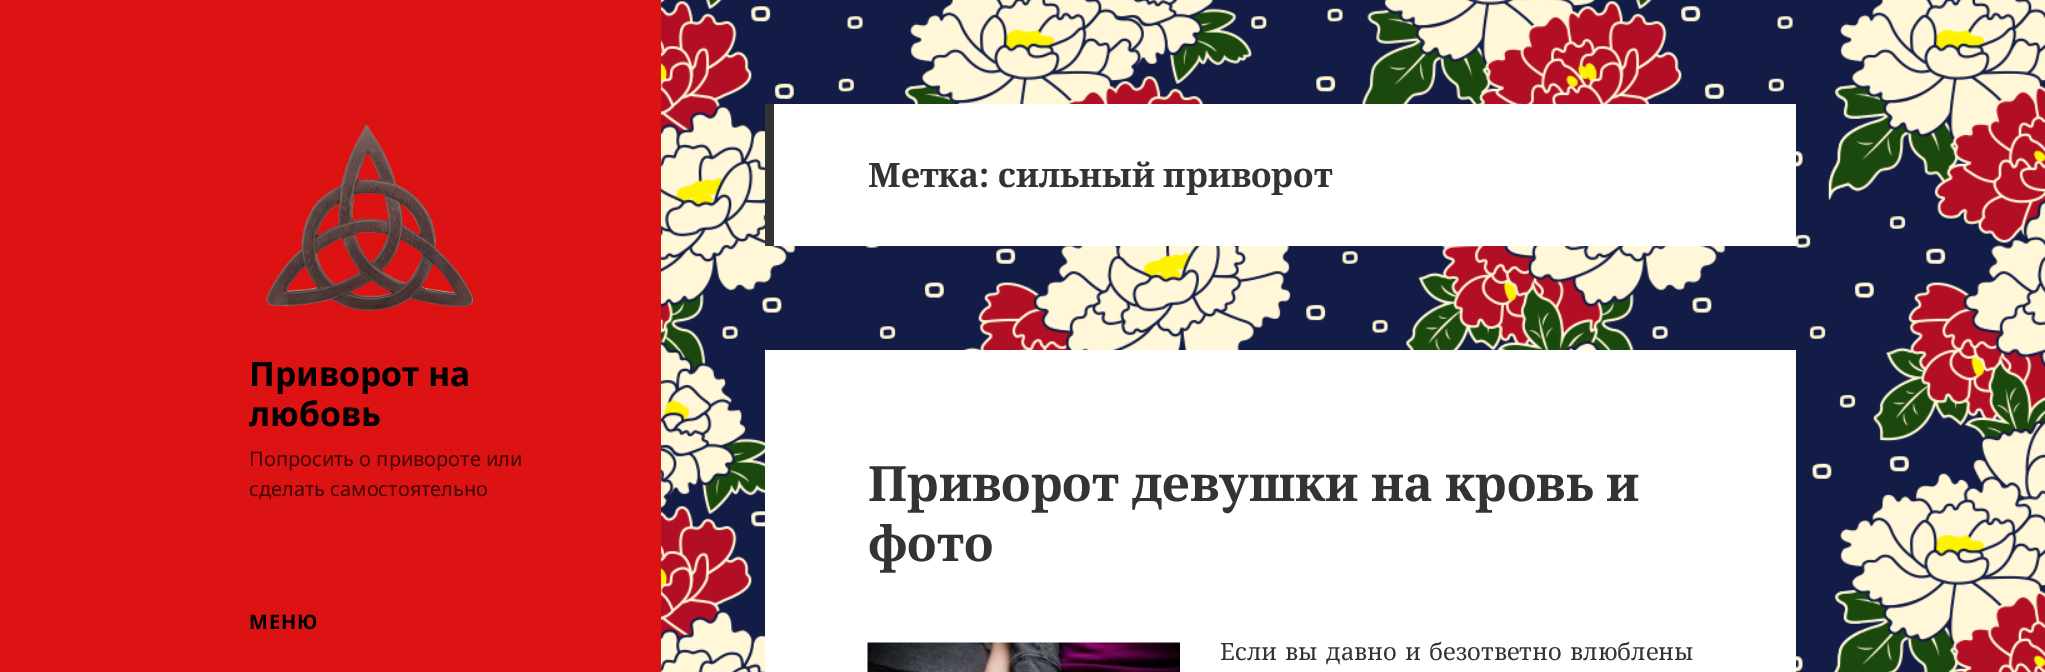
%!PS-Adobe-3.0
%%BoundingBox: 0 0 2045 672
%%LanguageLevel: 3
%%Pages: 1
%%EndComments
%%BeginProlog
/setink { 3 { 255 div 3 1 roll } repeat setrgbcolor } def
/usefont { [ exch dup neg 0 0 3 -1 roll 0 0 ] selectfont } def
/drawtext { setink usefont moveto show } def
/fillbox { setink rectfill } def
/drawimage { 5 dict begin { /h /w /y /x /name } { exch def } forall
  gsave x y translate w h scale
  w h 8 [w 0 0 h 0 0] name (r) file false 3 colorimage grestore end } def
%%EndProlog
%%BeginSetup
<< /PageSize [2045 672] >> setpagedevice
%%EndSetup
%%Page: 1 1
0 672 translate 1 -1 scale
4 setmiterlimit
0 0 2045 672 255 255 255 fillbox
(assets/img1.rgb) 661 0 1384 672 drawimage
0 0 661 672 221 19 19 fillbox
(assets/img2.rgb) 266 124 208 187 drawimage
(Приворот на) 249 386 /NotoSans-Bold 33.75 0 0 0 drawtext
(любовь) 249 426 /NotoSans-Bold 33.75 0 0 0 drawtext
(Попросить о привороте или) 249 466 /NotoSans-Regular 20 66 6 6 drawtext
(сделать самостоятельно) 249 496 /NotoSans-Regular 20 66 6 6 drawtext
/NotoSans-Bold 20 usefont
0 0 0 setink
249 629 moveto 1 0 (МЕНЮ) ashow
774 104 1022 142 255 255 255 fillbox
765 104 9 142 51 51 51 fillbox
(Метка: сильный приворот) 868 187 /NotoSerif-Bold 33.75 51 51 51 drawtext
765 350 1031 322 255 255 255 fillbox
(Приворот девушки на кровь и) 868 501 /NotoSerif-Bold 48.75 51 51 51 drawtext
(фото) 868 561 /NotoSerif-Bold 48.75 51 51 51 drawtext
(assets/img3.rgb) 867 642 313 30 drawimage
/NotoSerif-Regular 23.75 usefont
1220 660 moveto 2 0 32 (Если вы давно и безответно влюблены) widthshow
showpage
%%EOF
